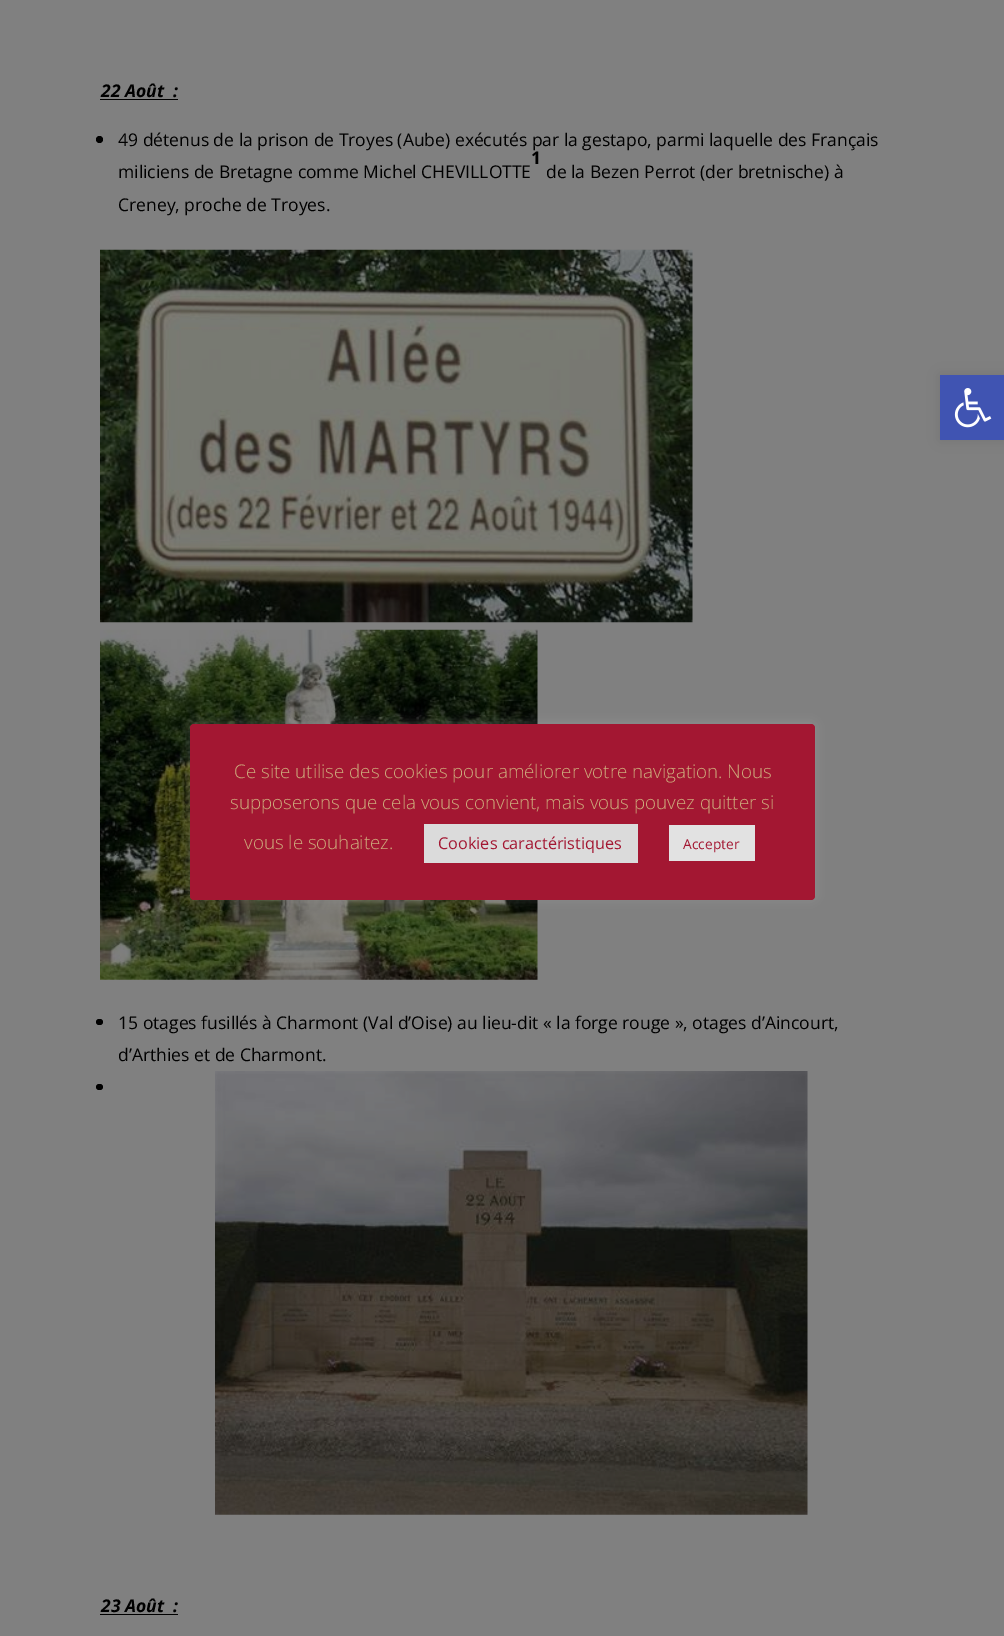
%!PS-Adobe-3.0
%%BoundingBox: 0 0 1004 1636
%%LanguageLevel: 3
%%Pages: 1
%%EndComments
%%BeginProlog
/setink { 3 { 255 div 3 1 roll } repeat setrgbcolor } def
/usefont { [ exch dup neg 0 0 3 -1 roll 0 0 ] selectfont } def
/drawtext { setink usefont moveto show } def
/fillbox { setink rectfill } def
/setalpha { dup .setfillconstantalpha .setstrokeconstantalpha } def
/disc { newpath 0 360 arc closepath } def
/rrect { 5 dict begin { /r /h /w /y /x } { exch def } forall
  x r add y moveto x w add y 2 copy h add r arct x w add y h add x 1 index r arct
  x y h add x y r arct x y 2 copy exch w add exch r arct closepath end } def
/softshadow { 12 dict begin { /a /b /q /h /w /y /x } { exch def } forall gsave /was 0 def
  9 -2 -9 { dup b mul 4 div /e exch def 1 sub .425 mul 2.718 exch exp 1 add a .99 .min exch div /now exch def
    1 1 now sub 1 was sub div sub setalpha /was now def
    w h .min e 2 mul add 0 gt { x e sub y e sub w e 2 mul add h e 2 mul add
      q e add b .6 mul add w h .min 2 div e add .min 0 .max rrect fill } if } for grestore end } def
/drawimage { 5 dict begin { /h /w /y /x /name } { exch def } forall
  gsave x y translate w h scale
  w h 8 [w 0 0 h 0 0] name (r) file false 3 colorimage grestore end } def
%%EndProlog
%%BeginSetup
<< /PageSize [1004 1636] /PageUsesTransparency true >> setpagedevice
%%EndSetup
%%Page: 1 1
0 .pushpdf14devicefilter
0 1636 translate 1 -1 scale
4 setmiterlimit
0 0 1004 1636 128 128 128 fillbox
(22 Août  :) 101 97 /OpenSans-BoldItalic 17.5 0 0 0 drawtext
100 99 78 1 0 0 0 fillbox
99.5 139.5 3.5 disc fill
(49 détenus de la prison de Troyes \(Aube\) exécutés par la gestapo, parmi laquelle des Français) 118 146 /OpenSans-Regular 17.5 0 0 0 drawtext
(1) 531 164 /OpenSans-Bold 17.5 0 0 0 drawtext
(miliciens de Bretagne comme Michel CHEVILLOTTE) 118 178 /OpenSans-Regular 17.5 0 0 0 drawtext
(de la Bezen Perrot \(der bretnische\) à) 546 178 /OpenSans-Regular 17.5 0 0 0 drawtext
(Creney, proche de Troyes.) 118 211 /OpenSans-Regular 17.5 0 0 0 drawtext
(assets/img1.rgb) 100 249 593 374 drawimage
(assets/img2.rgb) 100 629 438 351 drawimage
96 1019 7 6 3 rrect fill
(15 otages fusillés à Charmont \(Val d’Oise\) au lieu-dit « la forge rouge », otages d’Aincourt,) 118 1029 /OpenSans-Regular 17.5 0 0 0 drawtext
(d’Arthies et de Charmont.) 118 1061 /OpenSans-Regular 17.5 0 0 0 drawtext
96 1084 7 6 3 rrect fill
(assets/img3.rgb) 215 1071 593 444 drawimage
(23 Août  :) 101 1612 /OpenSans-BoldItalic 17.5 0 0 0 drawtext
100 1614 78 1 0 0 0 fillbox
940 375 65 65 0 6 0.1 softshadow
940 375 64 65 64 84 178 fillbox
(assets/img4.rgb) 954 388 38 40 drawimage
172 171 171 setink
190 723 625 176 4 6 0.3 softshadow
163 23 50 setink
190 724 625 176 4 rrect fill
(Ce site utilise des cookies pour améliorer votre navigation. Nous) 234 778 /OpenSans-Light 18.75 205 171 123 drawtext
(supposerons que cela vous convient, mais vous pouvez quitter si) 230 809 /OpenSans-Light 18.75 205 171 123 drawtext
(vous le souhaitez.) 244 849 /OpenSans-Light 18.75 205 171 123 drawtext
424 824 214 39 219 219 219 fillbox
(Cookies caractéristiques) 438 849 /OpenSans-Regular 16.25 163 23 50 drawtext
669 825 86 36 226 226 226 fillbox
(Accepter) 683 849 /OpenSans-Regular 13.75 163 23 50 drawtext
.poppdf14devicefilter showpage
%%EOF
